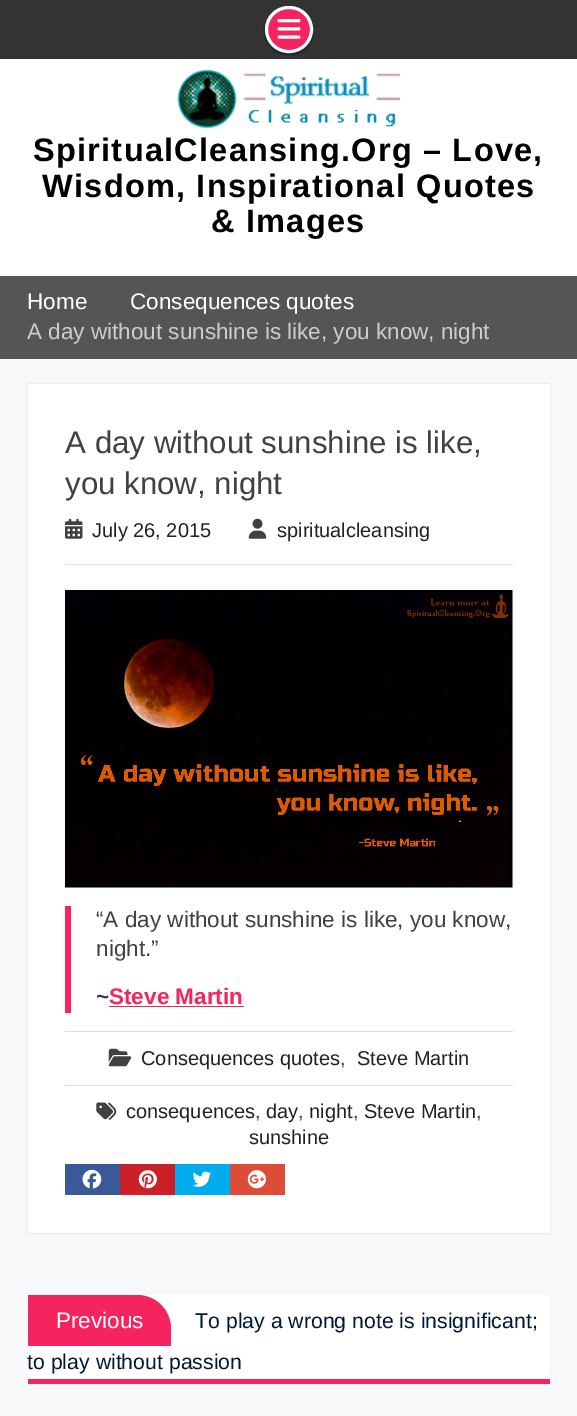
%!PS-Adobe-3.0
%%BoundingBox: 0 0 577 1416
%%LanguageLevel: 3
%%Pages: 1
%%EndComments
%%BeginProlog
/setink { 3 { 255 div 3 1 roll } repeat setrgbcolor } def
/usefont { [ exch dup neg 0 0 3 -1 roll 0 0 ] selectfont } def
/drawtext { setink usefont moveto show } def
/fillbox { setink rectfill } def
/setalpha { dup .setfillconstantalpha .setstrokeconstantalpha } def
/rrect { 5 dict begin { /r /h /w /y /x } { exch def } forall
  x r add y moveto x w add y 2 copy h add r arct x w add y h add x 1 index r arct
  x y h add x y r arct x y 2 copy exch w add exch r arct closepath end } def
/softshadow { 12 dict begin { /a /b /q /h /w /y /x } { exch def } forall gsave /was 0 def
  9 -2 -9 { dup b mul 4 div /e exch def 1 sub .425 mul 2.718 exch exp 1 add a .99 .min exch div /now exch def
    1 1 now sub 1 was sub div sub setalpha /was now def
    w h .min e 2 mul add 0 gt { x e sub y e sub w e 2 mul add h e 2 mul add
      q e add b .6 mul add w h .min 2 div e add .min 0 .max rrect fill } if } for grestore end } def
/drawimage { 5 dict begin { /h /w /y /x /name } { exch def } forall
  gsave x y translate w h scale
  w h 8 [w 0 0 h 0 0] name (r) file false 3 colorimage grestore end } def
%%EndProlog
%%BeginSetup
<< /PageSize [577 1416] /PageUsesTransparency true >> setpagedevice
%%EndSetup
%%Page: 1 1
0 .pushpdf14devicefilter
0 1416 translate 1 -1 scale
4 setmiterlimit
0 0 577 1416 255 255 255 fillbox
0 0 577 59 51 51 51 fillbox
0 24 55 setink
265 8 48 46 23 1 1 softshadow
245 36 95 setink
266.5 7.5 45 44 22 rrect gsave fill grestore
255 255 254 setink
3 setlinewidth
stroke
(assets/img1.rgb) 277 19 24 20 drawimage
(assets/img2.rgb) 177 69 224 60 drawimage
/LiberationSans-Bold 32.5 usefont
0 0 0 setink
33 161 moveto 1.25 0 (SpiritualCleansing.Org – Love,) ashow
42 197 moveto 1.25 0 (Wisdom, Inspirational Quotes) ashow
211 232 moveto 1.25 0 (& Images) ashow
0 276 577 83 85 85 85 fillbox
(Home) 27 309 /LiberationSans-Regular 22.5 255 255 255 drawtext
(Consequences quotes) 130 309 /LiberationSans-Regular 22.5 255 255 255 drawtext
(A day without sunshine is like, you know, night) 27 339 /LiberationSans-Regular 22.5 204 204 204 drawtext
0 359 577 1057 247 248 250 fillbox
207 207 207 setink
28 384 522 849 0 1 1 softshadow
28 384 522 849 255 255 255 fillbox
(A day without sunshine is like,) 65 453 /LiberationSans-Regular 31.25 65 65 65 drawtext
(you know, night) 65 494 /LiberationSans-Regular 31.25 65 65 65 drawtext
65 564 448 1 221 221 221 fillbox
(assets/img3.rgb) 65 518 18 21 drawimage
(July 26, 2015) 92 537 /LiberationSans-Regular 20 34 34 34 drawtext
(assets/img4.rgb) 248 518 19 21 drawimage
(spiritualcleansing) 277 537 /LiberationSans-Regular 20 34 34 34 drawtext
(assets/img5.rgb) 65 590 448 298 drawimage
65 906 6 107 245 36 95 fillbox
(“A day without sunshine is like, you know,) 96 927 /LiberationSans-Regular 22.5 65 65 65 drawtext
(night.”) 96 956 /LiberationSans-Regular 22.5 65 65 65 drawtext
(~) 96 1004 /LiberationSans-Bold 22.5 65 65 65 drawtext
109 1006 135 1 245 36 95 fillbox
(Steve Martin) 109 1004 /LiberationSans-Bold 22.5 245 36 95 drawtext
65 1031 448 1 221 221 221 fillbox
(assets/img6.rgb) 108 1048 24 19 drawimage
(Consequences quotes) 141 1065 /LiberationSans-Regular 20 34 34 34 drawtext
(,) 340 1065 /LiberationSans-Regular 20 65 65 65 drawtext
(Steve Martin) 357 1065 /LiberationSans-Regular 20 34 34 34 drawtext
65 1085 448 1 221 221 221 fillbox
(assets/img7.rgb) 96 1102 21 18 drawimage
(consequences) 126 1118 /LiberationSans-Regular 20 34 34 34 drawtext
(,) 255 1118 /LiberationSans-Regular 20 65 65 65 drawtext
(day) 266 1118 /LiberationSans-Regular 20 34 34 34 drawtext
(,) 298 1118 /LiberationSans-Regular 20 65 65 65 drawtext
(night) 309 1118 /LiberationSans-Regular 20 34 34 34 drawtext
(,) 353 1118 /LiberationSans-Regular 20 65 65 65 drawtext
(Steve Martin) 364 1118 /LiberationSans-Regular 20 34 34 34 drawtext
(,) 476 1118 /LiberationSans-Regular 20 65 65 65 drawtext
(sunshine) 249 1144 /LiberationSans-Regular 20 34 34 34 drawtext
65 1164 55 31 59 89 152 fillbox
(assets/img8.rgb) 82 1169 20 20 drawimage
120 1164 55 31 203 32 39 fillbox
(assets/img9.rgb) 138 1170 19 19 drawimage
175 1164 55 31 0 172 237 fillbox
(assets/img10.rgb) 192 1171 20 16 drawimage
230 1164 55 31 221 75 57 fillbox
(assets/img11.rgb) 247 1170 19 19 drawimage
28 1379 522 5 245 36 95 fillbox
28 1295 522 84 255 255 255 fillbox
245 36 95 setink
28 1295 moveto 137 1295 lineto 156 1295 171 1310 171 1329 curveto 171 1346 lineto 28 1346 lineto closepath fill
(Previous) 56 1328 /LiberationSans-Regular 22.5 255 255 255 drawtext
(To play a wrong note is insignificant;) 195 1328 /LiberationSans-Regular 21.25 0 24 55 drawtext
(to play without passion) 27 1369 /LiberationSans-Regular 21.25 0 24 55 drawtext
.poppdf14devicefilter showpage
%%EOF
